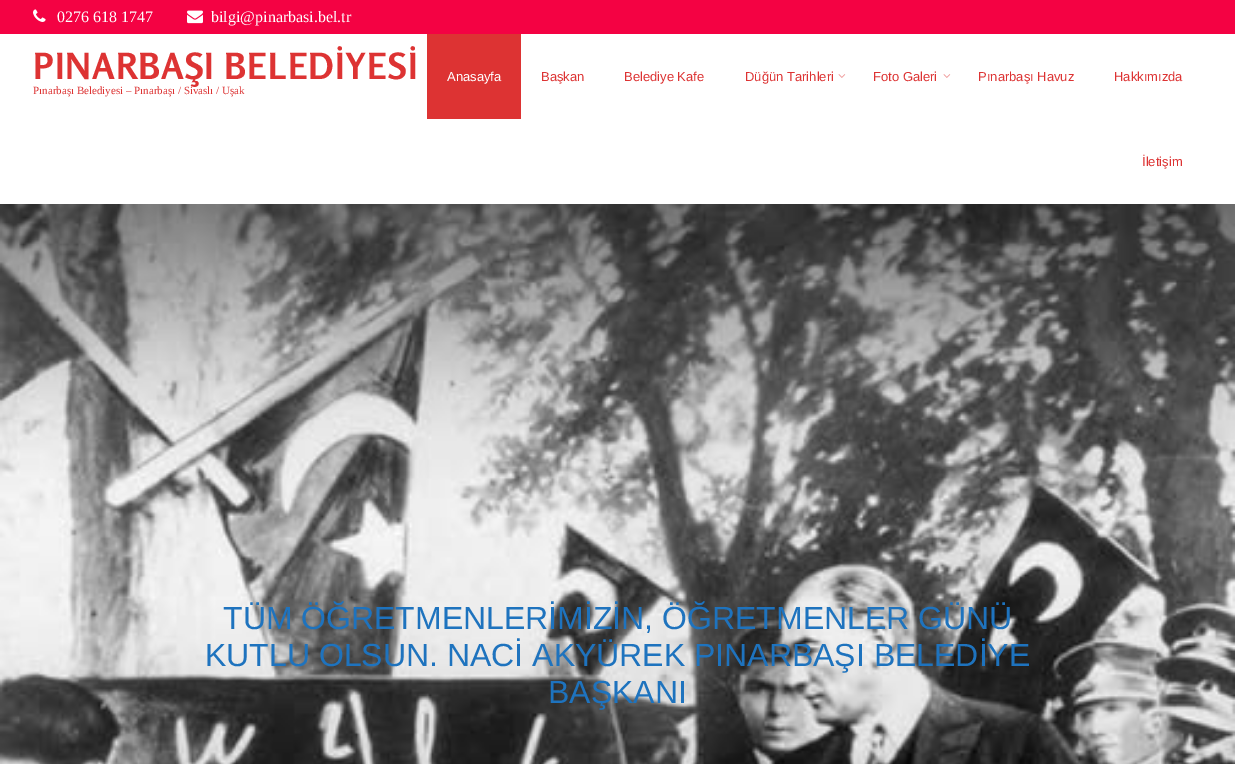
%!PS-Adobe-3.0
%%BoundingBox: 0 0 1235 764
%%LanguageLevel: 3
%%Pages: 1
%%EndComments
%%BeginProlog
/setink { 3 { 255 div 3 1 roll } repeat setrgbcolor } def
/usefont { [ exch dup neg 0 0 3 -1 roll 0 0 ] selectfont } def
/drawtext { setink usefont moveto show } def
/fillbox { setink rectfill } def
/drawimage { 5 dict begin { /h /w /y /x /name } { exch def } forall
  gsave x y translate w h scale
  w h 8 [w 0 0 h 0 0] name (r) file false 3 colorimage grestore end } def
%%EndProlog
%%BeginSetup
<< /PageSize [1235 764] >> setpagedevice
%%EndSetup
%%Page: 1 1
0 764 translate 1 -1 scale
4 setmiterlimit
0 0 1235 764 255 255 255 fillbox
0 0 1235 34 244 2 67 fillbox
(assets/img1.rgb) 33 9 13 13 drawimage
(0276 618 1747) 57 22 /LiberationSerif-Regular 16 255 255 255 drawtext
(assets/img2.rgb) 187 10 16 14 drawimage
(bilgi@pinarbasi.bel.tr) 211 22 /LiberationSerif-Regular 16 255 255 255 drawtext
/Rosario-Bold 36 usefont
221 51 51 setink
33 79 moveto 1 0 (PINARBAŞI BELEDİYESİ) ashow
(Pınarbaşı Belediyesi – Pınarbaşı / Sivaslı / Uşak) 33 94 /LiberationSerif-Regular 11 221 51 51 drawtext
427 34 94 85 221 51 51 fillbox
(Anasayfa) 447 81 /LiberationSans-Regular 13 255 255 255 drawtext
(Başkan) 541 81 /LiberationSans-Regular 13 221 51 51 drawtext
(Belediye Kafe) 624 81 /LiberationSans-Regular 13 221 51 51 drawtext
(Düğün Tarihleri) 745 81 /LiberationSans-Regular 13 221 51 51 drawtext
(assets/img3.rgb) 838 74 8 4 drawimage
(Foto Galeri) 873 81 /LiberationSans-Regular 13 221 51 51 drawtext
(assets/img3.rgb) 943 74 8 4 drawimage
(Pınarbaşı Havuz) 978 81 /LiberationSans-Regular 13 221 51 51 drawtext
(Hakkımızda) 1114 81 /LiberationSans-Regular 13 221 51 51 drawtext
(İletişim) 1142 166 /LiberationSans-Regular 13 221 51 51 drawtext
(assets/img4.rgb) 0 204 1235 560 drawimage
(TÜM ÖĞRETMENLERİMİZİN, ÖĞRETMENLER GÜNÜ) 223 629 /LiberationSans-Regular 32 30 115 190 drawtext
(KUTLU OLSUN. NACİ AKYÜREK PINARBAŞI BELEDİYE) 205 666 /LiberationSans-Regular 32 30 115 190 drawtext
(BAŞKANI) 548 703 /LiberationSans-Regular 32 30 115 190 drawtext
showpage
%%EOF
